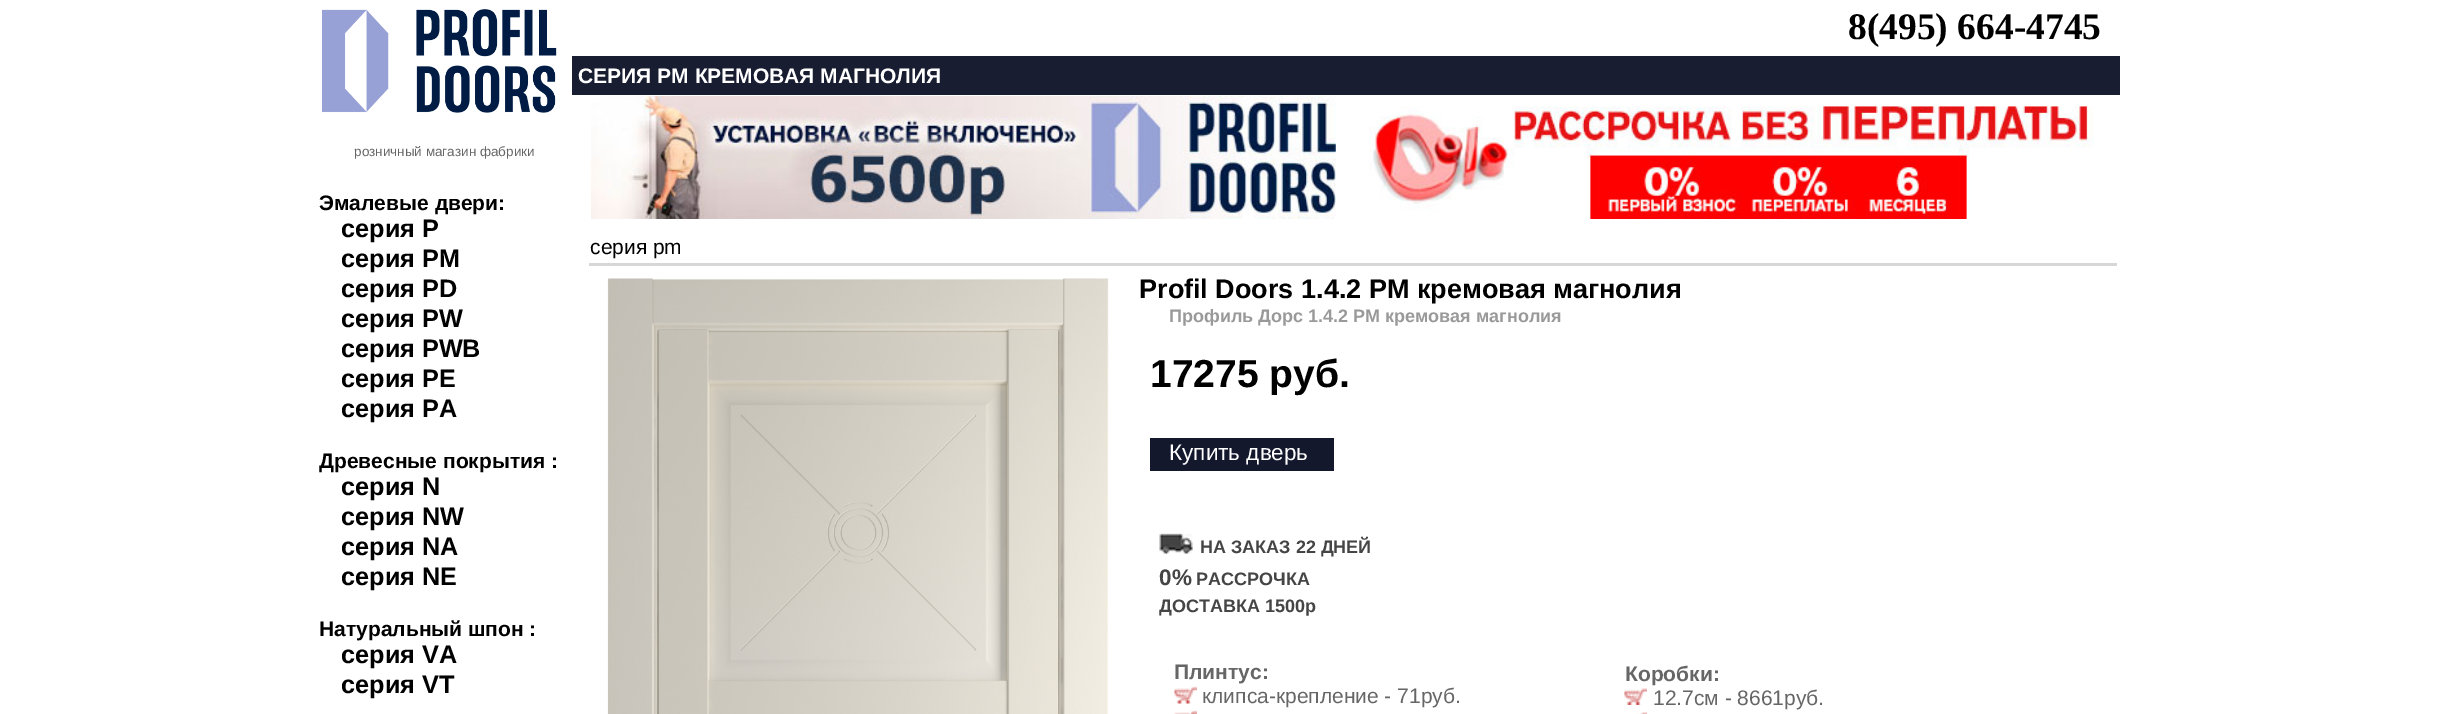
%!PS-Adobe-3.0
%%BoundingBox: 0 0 2437 714
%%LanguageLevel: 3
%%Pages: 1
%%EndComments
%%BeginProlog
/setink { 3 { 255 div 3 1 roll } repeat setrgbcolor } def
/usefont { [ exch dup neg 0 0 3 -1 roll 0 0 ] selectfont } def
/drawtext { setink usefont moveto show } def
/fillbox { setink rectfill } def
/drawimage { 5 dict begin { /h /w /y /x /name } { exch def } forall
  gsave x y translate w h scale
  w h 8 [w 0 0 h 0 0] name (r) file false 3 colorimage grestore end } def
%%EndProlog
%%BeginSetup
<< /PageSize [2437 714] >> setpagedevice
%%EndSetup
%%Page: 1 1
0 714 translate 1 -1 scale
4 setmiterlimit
0 0 2437 714 255 255 255 fillbox
(assets/img1.rgb) 322 9 235 104 drawimage
(розничный магазин фабрики) 354 156 /LiberationSans-Regular 13.5 102 102 102 drawtext
(Эмалевые двери:) 319 210 /LiberationSans-Bold 21 0 0 0 drawtext
(серия P) 341 237 /LiberationSans-Bold 25.25 0 0 0 drawtext
(серия PM) 341 267 /LiberationSans-Bold 25.25 0 0 0 drawtext
(серия PD) 341 297 /LiberationSans-Bold 25.25 0 0 0 drawtext
(серия PW) 341 327 /LiberationSans-Bold 25.25 0 0 0 drawtext
(серия PWB) 341 357 /LiberationSans-Bold 25.25 0 0 0 drawtext
(серия PE) 341 387 /LiberationSans-Bold 25.25 0 0 0 drawtext
(серия PA) 341 417 /LiberationSans-Bold 25.25 0 0 0 drawtext
(Древесные покрытия :) 319 468 /LiberationSans-Bold 21 0 0 0 drawtext
(серия N) 341 495 /LiberationSans-Bold 25.25 0 0 0 drawtext
(серия NW) 341 525 /LiberationSans-Bold 25.25 0 0 0 drawtext
(серия NA) 341 555 /LiberationSans-Bold 25.25 0 0 0 drawtext
(серия NE) 341 585 /LiberationSans-Bold 25.25 0 0 0 drawtext
(Натуральный шпон :) 319 636 /LiberationSans-Bold 21 0 0 0 drawtext
(серия VA) 341 663 /LiberationSans-Bold 25.25 0 0 0 drawtext
(серия VT) 341 693 /LiberationSans-Bold 25.25 0 0 0 drawtext
(8\(495\) 664-4745) 1848 39 /LiberationSerif-Bold 37.5 0 0 0 drawtext
572 56 1548 39 24 29 49 fillbox
(СЕРИЯ PM КРЕМОВАЯ МАГНОЛИЯ) 578 83 /LiberationSans-Bold 21 255 255 255 drawtext
(assets/img2.rgb) 591 96 745 123 drawimage
(assets/img3.rgb) 1369 106 725 113 drawimage
589 263 1528 3 215 215 215 fillbox
(серия pm) 590 254 /LiberationSans-Regular 21 0 0 0 drawtext
(assets/img4.rgb) 607 278 502 436 drawimage
(Profil Doors 1.4.2 PM кремовая магнолия) 1139 298 /LiberationSans-Bold 27 0 0 0 drawtext
(Профиль Дорс 1.4.2 PM кремовая магнолия) 1169 322 /LiberationSans-Bold 18 153 153 153 drawtext
(17275 руб.) 1150 387 /LiberationSans-Bold 39 0 0 0 drawtext
1150 438 184 33 19 24 45 fillbox
(Купить дверь) 1169 460 /LiberationSans-Regular 22.5 255 255 255 drawtext
(assets/img5.rgb) 1159 533 34 21 drawimage
(НА ЗАКАЗ 22 ДНЕЙ) 1200 553 /LiberationSans-Bold 18 69 69 69 drawtext
(0%) 1159 585 /LiberationSans-Bold 22.5 69 69 69 drawtext
(РАССРОЧКА) 1196 585 /LiberationSans-Bold 18 69 69 69 drawtext
(ДОСТАВКА 1500р) 1159 612 /LiberationSans-Bold 18 69 69 69 drawtext
(Плинтус:) 1174 679 /LiberationSans-Bold 21 102 102 102 drawtext
(assets/img6.rgb) 1174 686 23 18 drawimage
(клипса-крепление - 71руб.) 1202 703 /LiberationSans-Regular 21 102 102 102 drawtext
(assets/img7.rgb) 1174 710 23 4 drawimage
(Коробки:) 1625 681 /LiberationSans-Bold 21 102 102 102 drawtext
(assets/img8.rgb) 1624 688 23 17 drawimage
(12.7см - 8661руб.) 1653 705 /LiberationSans-Regular 21 102 102 102 drawtext
(assets/img9.rgb) 1636 712 11 2 drawimage
showpage
%%EOF
